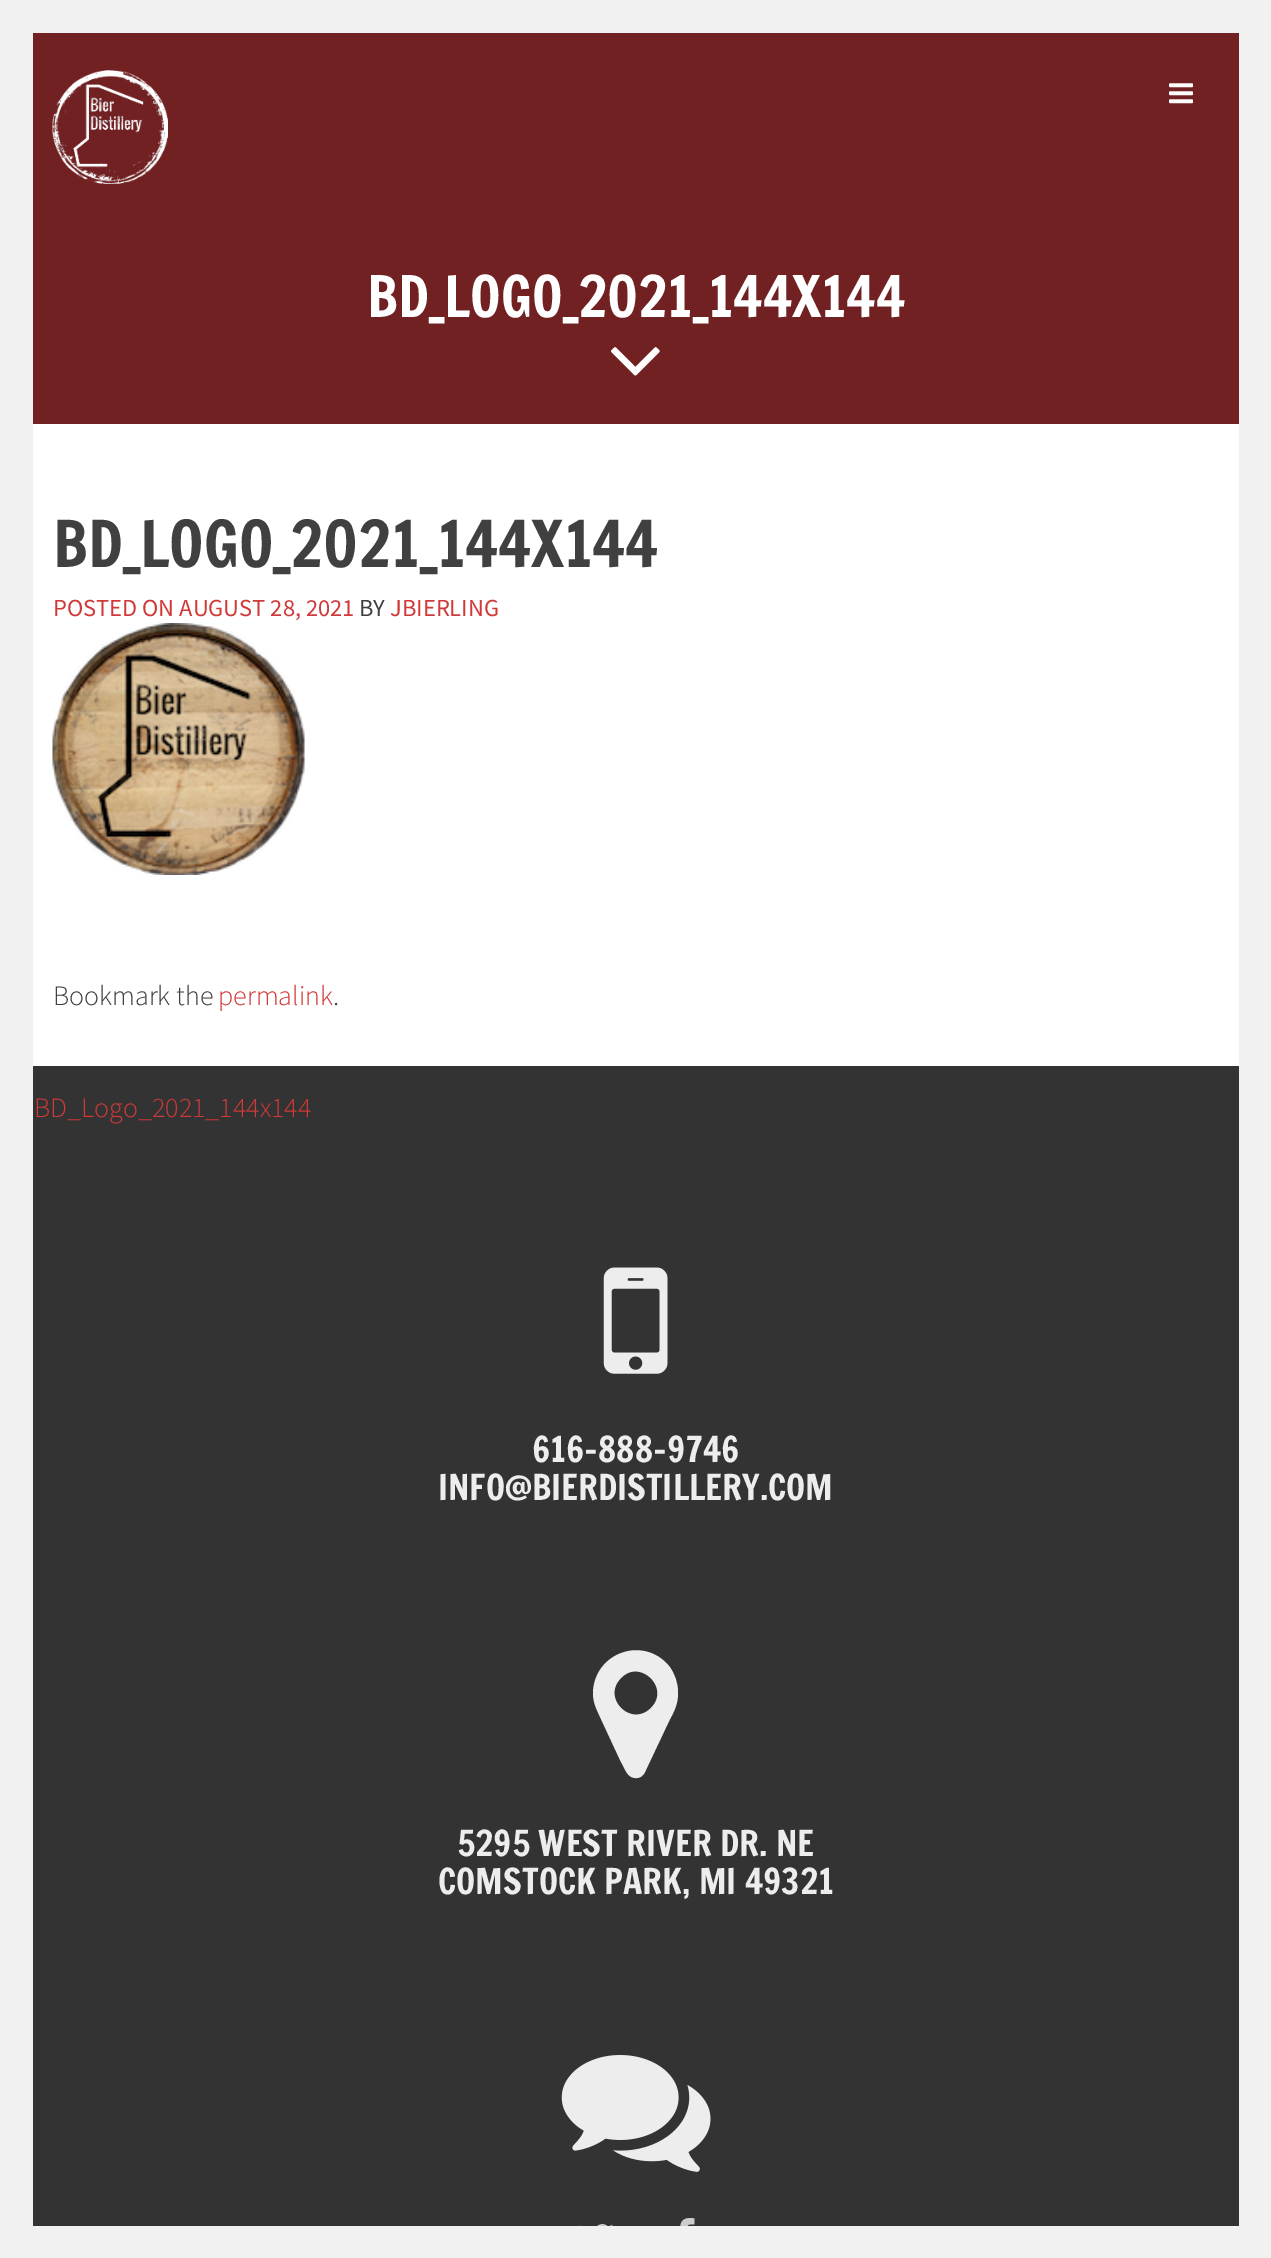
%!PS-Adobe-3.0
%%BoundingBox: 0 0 1271 2258
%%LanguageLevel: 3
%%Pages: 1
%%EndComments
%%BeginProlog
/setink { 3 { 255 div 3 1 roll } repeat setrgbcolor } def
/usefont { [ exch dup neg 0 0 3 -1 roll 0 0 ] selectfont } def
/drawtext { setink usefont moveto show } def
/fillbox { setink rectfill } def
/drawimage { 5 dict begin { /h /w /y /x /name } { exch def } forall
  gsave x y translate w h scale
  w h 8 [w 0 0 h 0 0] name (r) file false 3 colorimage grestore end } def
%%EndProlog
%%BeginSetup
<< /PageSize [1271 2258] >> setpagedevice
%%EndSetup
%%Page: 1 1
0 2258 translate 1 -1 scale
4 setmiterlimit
0 0 1271 2258 255 255 255 fillbox
0 0 33 2258 241 241 241 fillbox
33 0 1206 33 241 241 241 fillbox
1239 0 32 2226 241 241 241 fillbox
33 33 1206 391 114 33 35 fillbox
(assets/img1.rgb) 52 70 116 114 drawimage
(assets/img2.rgb) 1169 83 24 21 drawimage
(BD_LOGO_2021_144X144) 367 317 /FrancoisOne-Regular 56 255 255 255 drawtext
(assets/img3.rgb) 611 347 49 29 drawimage
(BD_LOGO_2021_144X144) 53 567 /FrancoisOne-Regular 63 64 64 64 drawtext
(POSTED ON AUGUST 28, 2021) 53 616 /SourceSansPro-Regular 24.5 209 57 57 drawtext
(BY) 359 616 /SourceSansPro-Regular 24.5 64 64 64 drawtext
(JBIERLING) 390 616 /SourceSansPro-Regular 24.5 209 57 57 drawtext
(assets/img4.rgb) 52 623 253 252 drawimage
(Bookmark the) 53 1005 /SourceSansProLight-Light 28 64 64 64 drawtext
(permalink) 218 1005 /SourceSansProLight-Light 28 209 57 57 drawtext
(.) 333 1005 /SourceSansProLight-Light 28 64 64 64 drawtext
33 1066 1206 1160 51 51 51 fillbox
(BD_Logo_2021_144x144) 34 1117 /SourceSansProLight-Light 28 209 57 57 drawtext
(assets/img5.rgb) 603 1267 65 107 drawimage
(616-888-9746) 532 1462 /FrancoisOne-Regular 35 237 237 237 drawtext
(INFO@BIERDISTILLERY.COM) 438 1500 /FrancoisOne-Regular 35 237 237 237 drawtext
651 1708 moveto 671 1688 640 1658 621 1678 curveto 601 1698 631 1728 651 1708 curveto closepath 678 1693 moveto 678 1703 675 1710 670 1719 curveto 644 1774 lineto 642 1776 640 1778 637 1778 curveto 627 1779 625 1768 621 1762 curveto 601 1719 lineto 597 1710 593 1703 593 1693 curveto 594 1653 643 1635 669 1666 curveto 675 1674 678 1683 678 1693 curveto closepath fill
(5295 WEST RIVER DR. NE) 457 1856 /FrancoisOne-Regular 35 237 237 237 drawtext
(COMSTOCK PARK, MI 49321) 438 1894 /FrancoisOne-Regular 35 237 237 237 drawtext
(assets/img6.rgb) 561 2055 150 117 drawimage
(assets/img7.rgb) 579 2224 34 2 drawimage
(assets/img8.rgb) 680 2218 15 8 drawimage
33 2226 1238 32 241 241 241 fillbox
showpage
%%EOF
